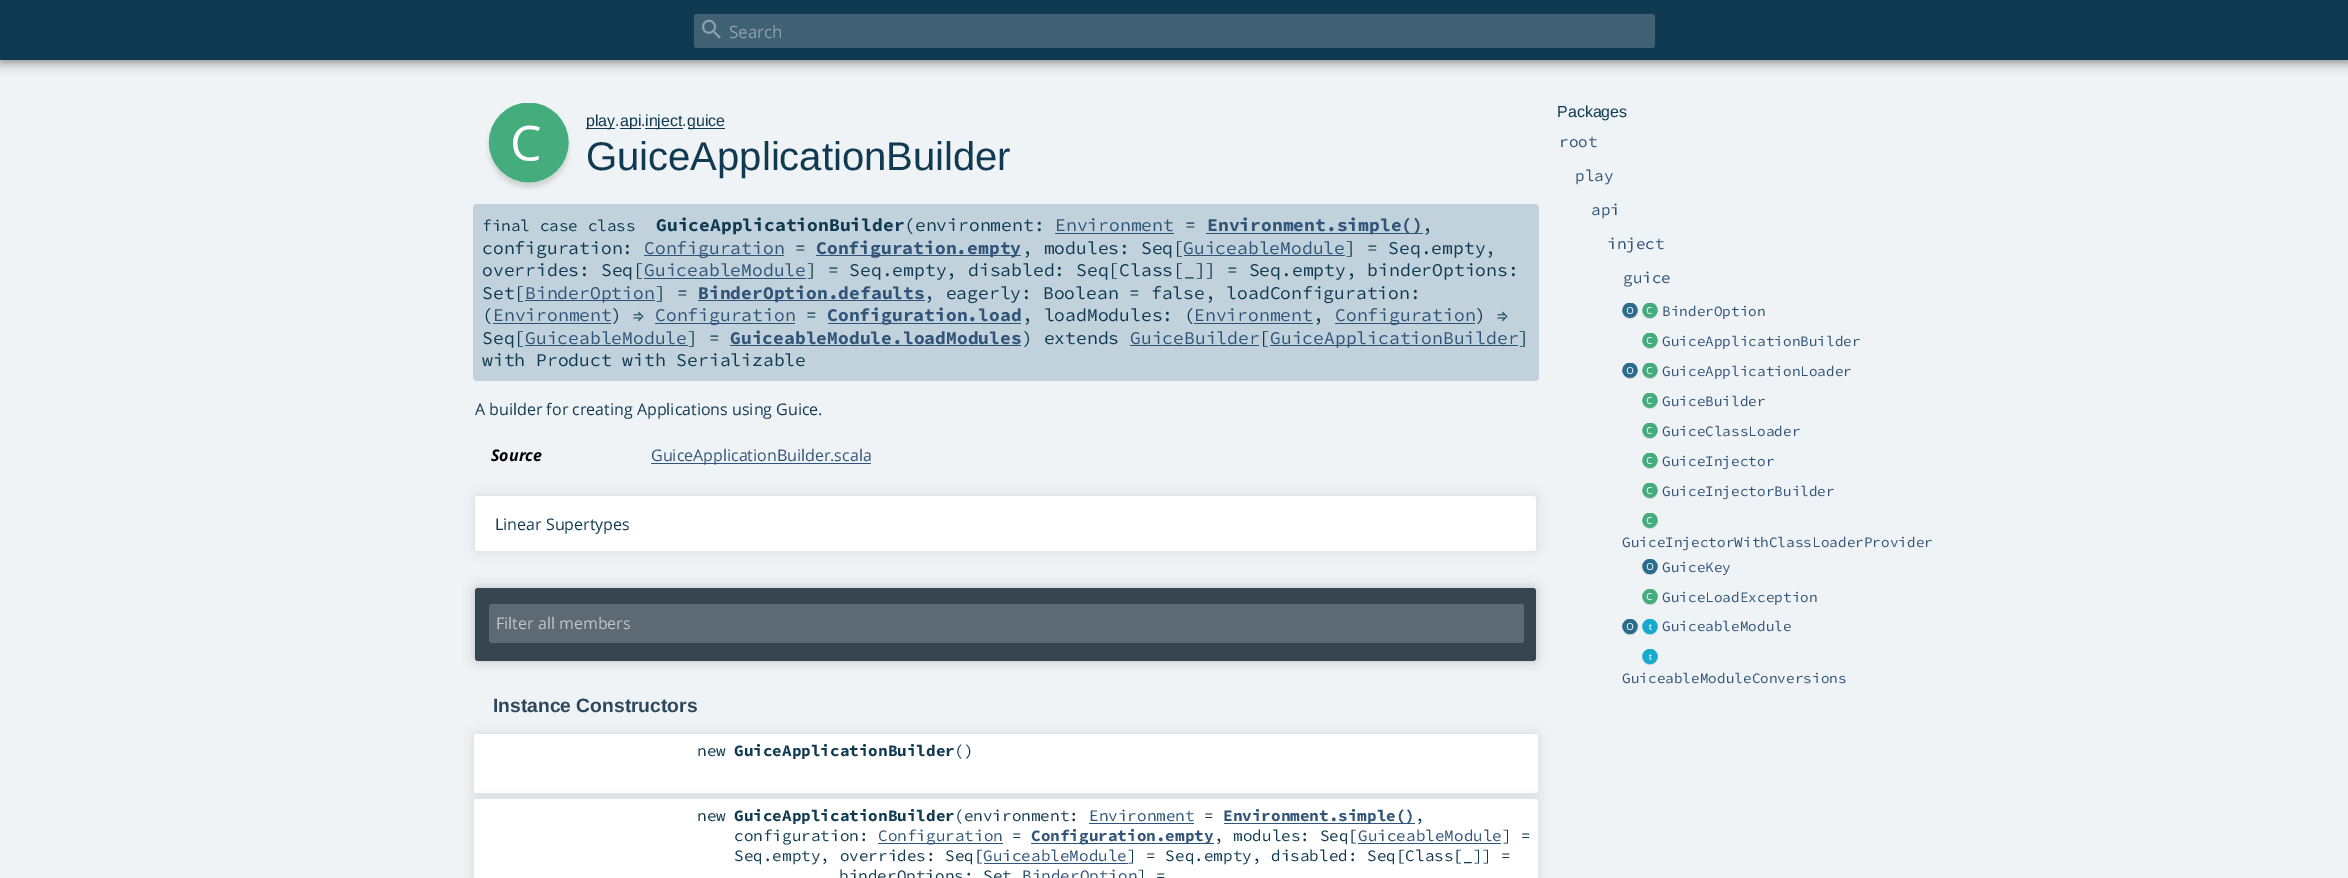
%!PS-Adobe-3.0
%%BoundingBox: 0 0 2348 878
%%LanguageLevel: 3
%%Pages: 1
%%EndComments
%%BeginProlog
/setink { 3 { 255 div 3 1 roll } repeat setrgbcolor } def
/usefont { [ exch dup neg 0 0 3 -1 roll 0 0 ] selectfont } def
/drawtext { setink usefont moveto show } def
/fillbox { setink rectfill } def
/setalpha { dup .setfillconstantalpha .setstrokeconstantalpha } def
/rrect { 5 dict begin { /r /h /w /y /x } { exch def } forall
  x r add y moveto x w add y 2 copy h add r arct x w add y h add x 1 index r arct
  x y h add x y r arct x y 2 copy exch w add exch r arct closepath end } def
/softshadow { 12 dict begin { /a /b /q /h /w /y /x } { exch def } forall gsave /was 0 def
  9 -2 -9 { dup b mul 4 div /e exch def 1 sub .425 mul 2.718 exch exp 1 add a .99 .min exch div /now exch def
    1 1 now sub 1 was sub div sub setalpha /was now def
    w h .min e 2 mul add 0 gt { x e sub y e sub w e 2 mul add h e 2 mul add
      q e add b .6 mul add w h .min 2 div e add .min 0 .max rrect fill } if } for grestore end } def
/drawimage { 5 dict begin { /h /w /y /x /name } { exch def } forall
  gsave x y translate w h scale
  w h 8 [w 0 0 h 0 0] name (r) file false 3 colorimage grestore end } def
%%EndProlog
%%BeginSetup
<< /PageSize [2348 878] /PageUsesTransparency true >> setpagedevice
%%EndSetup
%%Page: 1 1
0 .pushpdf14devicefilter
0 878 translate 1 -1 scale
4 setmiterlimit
0 0 2348 878 240 243 246 fillbox
0 0 0 setink
0 5 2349 60 0 5 0.28 softshadow
0 0 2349 60 0 2.5 0.18 softshadow
0 0 2348 60 16 58 81 fillbox
64 97 116 setink
694 14 961 34 3 rrect fill
(assets/img1.rgb) 702 19 19 20 drawimage
(Search) 729 38 /OpenSans-Regular 17 140 160 172 drawtext
(assets/img2.rgb) 486 103 85 87 drawimage
586 128 29 1 16 58 81 fillbox
(play.) 586 126 /LiberationSans-Regular 16 16 58 81 drawtext
620 128 21 1 16 58 81 fillbox
(api.) 620 126 /LiberationSans-Regular 16 16 58 81 drawtext
645 128 38 1 16 58 81 fillbox
(inject.) 645 126 /LiberationSans-Regular 16 16 58 81 drawtext
688 128 37 1 16 58 81 fillbox
(guice) 687 126 /LiberationSans-Regular 16 16 58 81 drawtext
(GuiceApplicationBuilder) 586 170 /LiberationSans-Regular 40 16 58 81 drawtext
194 210 220 setink
473 204 1066 177 4 rrect fill
(\(environment:) 904 231 /SourceCodePro-Regular 18 16 58 81 drawtext
(Environment) 1055 231 /SourceCodePro-Regular 18 49 84 121 drawtext
1055 233 119 1 49 84 121 fillbox
(=) 1185 231 /SourceCodePro-Regular 18 16 58 81 drawtext
1206 233 217 1 49 84 121 fillbox
(Environment.simple\(\)) 1207 231 /SourceCodePro-Bold 18 49 84 121 drawtext
(,) 1422 231 /SourceCodePro-Regular 18 16 58 81 drawtext
(configuration:) 482 254 /SourceCodePro-Regular 18 16 58 81 drawtext
644 255 140 1 49 84 121 fillbox
(Configuration) 644 254 /SourceCodePro-Regular 18 49 84 121 drawtext
(=) 795 254 /SourceCodePro-Regular 18 16 58 81 drawtext
816 255 205 1 49 84 121 fillbox
(Configuration.empty) 816 254 /SourceCodePro-Bold 18 49 84 121 drawtext
(, modules: Seq[) 1022 254 /SourceCodePro-Regular 18 16 58 81 drawtext
(GuiceableModule) 1183 254 /SourceCodePro-Regular 18 49 84 121 drawtext
(] = Seq.empty,) 1345 254 /SourceCodePro-Regular 18 16 58 81 drawtext
1184 255 161 1 49 84 121 fillbox
(overrides: Seq[) 482 276 /SourceCodePro-Regular 18 16 58 81 drawtext
644 278 162 1 49 84 121 fillbox
(GuiceableModule) 644 276 /SourceCodePro-Regular 18 49 84 121 drawtext
(] = Seq.empty, disabled: Seq[Class[_]] = Seq.empty, binderOptions:) 806 276 /SourceCodePro-Regular 18 16 58 81 drawtext
(Set[) 482 299 /SourceCodePro-Regular 18 16 58 81 drawtext
525 300 130 1 49 84 121 fillbox
(BinderOption) 525 299 /SourceCodePro-Regular 18 49 84 121 drawtext
(] =) 655 299 /SourceCodePro-Regular 18 16 58 81 drawtext
698 300 227 1 49 84 121 fillbox
(BinderOption.defaults) 698 299 /SourceCodePro-Bold 18 49 84 121 drawtext
(, eagerly: Boolean = false, loadConfiguration:) 924 299 /SourceCodePro-Regular 18 16 58 81 drawtext
(Environment) 1194 321 /SourceCodePro-Regular 18 49 84 121 drawtext
1194 323 119 1 49 84 121 fillbox
(,) 1313 321 /SourceCodePro-Regular 18 16 58 81 drawtext
1335 323 140 1 49 84 121 fillbox
(Configuration) 1335 321 /SourceCodePro-Regular 18 49 84 121 drawtext
(\) ⇒) 1475 321 /SourceCodePro-Regular 18 16 58 81 drawtext
(Seq[) 482 344 /SourceCodePro-Regular 18 16 58 81 drawtext
(GuiceableModule) 525 344 /SourceCodePro-Regular 18 49 84 121 drawtext
525 345 163 1 49 84 121 fillbox
(] =) 687 344 /SourceCodePro-Regular 18 16 58 81 drawtext
(GuiceableModule.loadModules) 730 344 /SourceCodePro-Bold 18 49 84 121 drawtext
730 345 291 1 49 84 121 fillbox
(\() 482 321 /SourceCodePro-Regular 18 16 58 81 drawtext
(Environment) 493 321 /SourceCodePro-Regular 18 49 84 121 drawtext
493 323 118 1 49 84 121 fillbox
(\) ⇒) 611 321 /SourceCodePro-Regular 18 16 58 81 drawtext
655 323 140 1 49 84 121 fillbox
(Configuration) 655 321 /SourceCodePro-Regular 18 49 84 121 drawtext
(=) 806 321 /SourceCodePro-Regular 18 16 58 81 drawtext
828 323 193 1 49 84 121 fillbox
(Configuration.load) 827 321 /SourceCodePro-Bold 18 49 84 121 drawtext
(, loadModules: \() 1022 321 /SourceCodePro-Regular 18 16 58 81 drawtext
(\) extends) 1022 344 /SourceCodePro-Regular 18 16 58 81 drawtext
(GuiceApplicationBuilder) 656 231 /SourceCodePro-Bold 18 16 58 81 drawtext
(GuiceBuilder) 1130 344 /SourceCodePro-Regular 18 49 84 121 drawtext
1130 345 129 1 49 84 121 fillbox
([) 1259 344 /SourceCodePro-Regular 18 16 58 81 drawtext
1270 345 248 1 49 84 121 fillbox
(GuiceApplicationBuilder) 1270 344 /SourceCodePro-Regular 18 49 84 121 drawtext
(]) 1518 344 /SourceCodePro-Regular 18 16 58 81 drawtext
(with Product with Serializable) 482 366 /SourceCodePro-Regular 18 16 58 81 drawtext
(final case class) 482 231 /SourceCodePro-Regular 16 16 58 81 drawtext
(A builder for creating Applications using Guice.) 475 415 /OpenSans-Regular 16 16 58 81 drawtext
(Source) 491 461 /OpenSans-BoldItalic 16 0 0 0 drawtext
651 463 220 1 49 84 121 fillbox
(GuiceApplicationBuilder.scala) 651 461 /OpenSans-Regular 16 49 84 121 drawtext
0 0 0 setink
475 496 1061 55 3 6 0.1 softshadow
255 255 255 setink
475 496 1061 55 3 rrect fill
(Linear Supertypes) 495 530 /OpenSans-Regular 16 16 58 81 drawtext
0 0 0 setink
475 588 1061 73 3 6 0.2 softshadow
54 69 80 setink
475 588 1061 73 3 rrect fill
94 106 115 setink
489 604 1035 39 3 rrect fill
(Filter all members) 496 629 /OpenSans-Regular 16 191 195 199 drawtext
(Instance Constructors) 493 712 /LiberationSans-Bold 19.25 44 71 92 drawtext
0 0 0 setink
474 734 1064 59 3 6 0.1 softshadow
255 255 255 setink
474 734 1064 59 3 rrect fill
474 735 1 1 255 255 255 fillbox
(new) 697 756 /SourceCodePro-Regular 16 16 58 81 drawtext
(GuiceApplicationBuilder) 734 756 /SourceCodePro-Bold 16 16 58 81 drawtext
(\(\)) 954 756 /SourceCodePro-Regular 16 16 58 81 drawtext
0 0 0 setink
474 799 1064 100 3 6 0.1 softshadow
255 255 255 setink
477 799 moveto 1535 799 lineto 1536.5 799 1538 800.5 1538 802 curveto 1538 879 lineto 474 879 lineto 474 802 lineto 474 800.5 475.5 799 477 799 curveto closepath fill
474 800 1 1 255 255 255 fillbox
(new) 697 821 /SourceCodePro-Regular 16 16 58 81 drawtext
(GuiceApplicationBuilder) 734 821 /SourceCodePro-Bold 16 16 58 81 drawtext
(\(environment:) 954 821 /SourceCodePro-Regular 16 16 58 81 drawtext
(Environment) 1089 821 /SourceCodePro-Regular 16 49 84 121 drawtext
1089 823 105 1 49 84 121 fillbox
(=) 1204 821 /SourceCodePro-Regular 16 16 58 81 drawtext
1224 823 191 1 49 84 121 fillbox
(Environment.simple\(\)) 1223 821 /SourceCodePro-Bold 16 49 84 121 drawtext
(,) 1415 821 /SourceCodePro-Regular 16 16 58 81 drawtext
(configuration:) 734 841 /SourceCodePro-Regular 16 16 58 81 drawtext
878 843 125 1 49 84 121 fillbox
(Configuration) 878 841 /SourceCodePro-Regular 16 49 84 121 drawtext
(=) 1012 841 /SourceCodePro-Regular 16 16 58 81 drawtext
1031 843 183 1 49 84 121 fillbox
(Configuration.empty) 1031 841 /SourceCodePro-Bold 16 49 84 121 drawtext
(, modules: Seq[) 1214 841 /SourceCodePro-Regular 16 16 58 81 drawtext
1358 843 143 1 49 84 121 fillbox
(GuiceableModule) 1358 841 /SourceCodePro-Regular 16 49 84 121 drawtext
(] =) 1502 841 /SourceCodePro-Regular 16 16 58 81 drawtext
(Seq.empty, overrides: Seq[) 734 861 /SourceCodePro-Regular 16 16 58 81 drawtext
(GuiceableModule) 983 861 /SourceCodePro-Regular 16 49 84 121 drawtext
(] = Seq.empty, disabled: Seq[Class[_]] =) 1127 861 /SourceCodePro-Regular 16 16 58 81 drawtext
984 863 144 1 49 84 121 fillbox
(binderOptions: Set) 839 881 /SourceCodePro-Regular 16 16 58 81 drawtext
(BinderOption) 1022 881 /SourceCodePro-Regular 16 49 84 121 drawtext
(] =) 1137 881 /SourceCodePro-Regular 16 16 58 81 drawtext
(Packages) 1557 117 /LiberationSans-Regular 16 16 58 81 drawtext
(root) 1559 147 /SourceCodePro-Regular 16 49 84 121 drawtext
(play) 1575 181 /SourceCodePro-Regular 16 49 84 121 drawtext
(api) 1591 215 /SourceCodePro-Regular 16 49 84 121 drawtext
(inject) 1607 249 /SourceCodePro-Regular 16 49 84 121 drawtext
(guice) 1623 283 /SourceCodePro-Regular 16 49 84 121 drawtext
(assets/img3.rgb) 1622 303 16 16 drawimage
(assets/img4.rgb) 1642 303 16 16 drawimage
(BinderOption) 1662 316 /SourceCodePro-Regular 14.4 49 84 121 drawtext
(assets/img4.rgb) 1642 333 16 16 drawimage
(GuiceApplicationBuilder) 1662 346 /SourceCodePro-Regular 14.4 49 84 121 drawtext
(assets/img3.rgb) 1622 363 16 16 drawimage
(assets/img4.rgb) 1642 363 16 16 drawimage
(GuiceApplicationLoader) 1662 376 /SourceCodePro-Regular 14.4 49 84 121 drawtext
(assets/img4.rgb) 1642 393 16 16 drawimage
(GuiceBuilder) 1662 406 /SourceCodePro-Regular 14.4 49 84 121 drawtext
(assets/img4.rgb) 1642 423 16 16 drawimage
(GuiceClassLoader) 1662 436 /SourceCodePro-Regular 14.4 49 84 121 drawtext
(assets/img4.rgb) 1642 453 16 16 drawimage
(GuiceInjector) 1662 466 /SourceCodePro-Regular 14.4 49 84 121 drawtext
(assets/img4.rgb) 1642 483 16 16 drawimage
(GuiceInjectorBuilder) 1662 496 /SourceCodePro-Regular 14.4 49 84 121 drawtext
(assets/img4.rgb) 1642 513 16 16 drawimage
(GuiceInjectorWithClassLoaderProvider) 1622 547 /SourceCodePro-Regular 14.4 49 84 121 drawtext
(assets/img5.rgb) 1642 559 16 17 drawimage
(GuiceKey) 1662 572 /SourceCodePro-Regular 14.4 49 84 121 drawtext
(assets/img6.rgb) 1642 589 16 17 drawimage
(GuiceLoadException) 1662 602 /SourceCodePro-Regular 14.4 49 84 121 drawtext
(assets/img5.rgb) 1622 619 16 17 drawimage
(assets/img7.rgb) 1642 619 16 17 drawimage
(GuiceableModule) 1662 631 /SourceCodePro-Regular 14.4 49 84 121 drawtext
(assets/img7.rgb) 1642 649 16 17 drawimage
(GuiceableModuleConversions) 1622 683 /SourceCodePro-Regular 14.4 49 84 121 drawtext
.poppdf14devicefilter showpage
%%EOF
